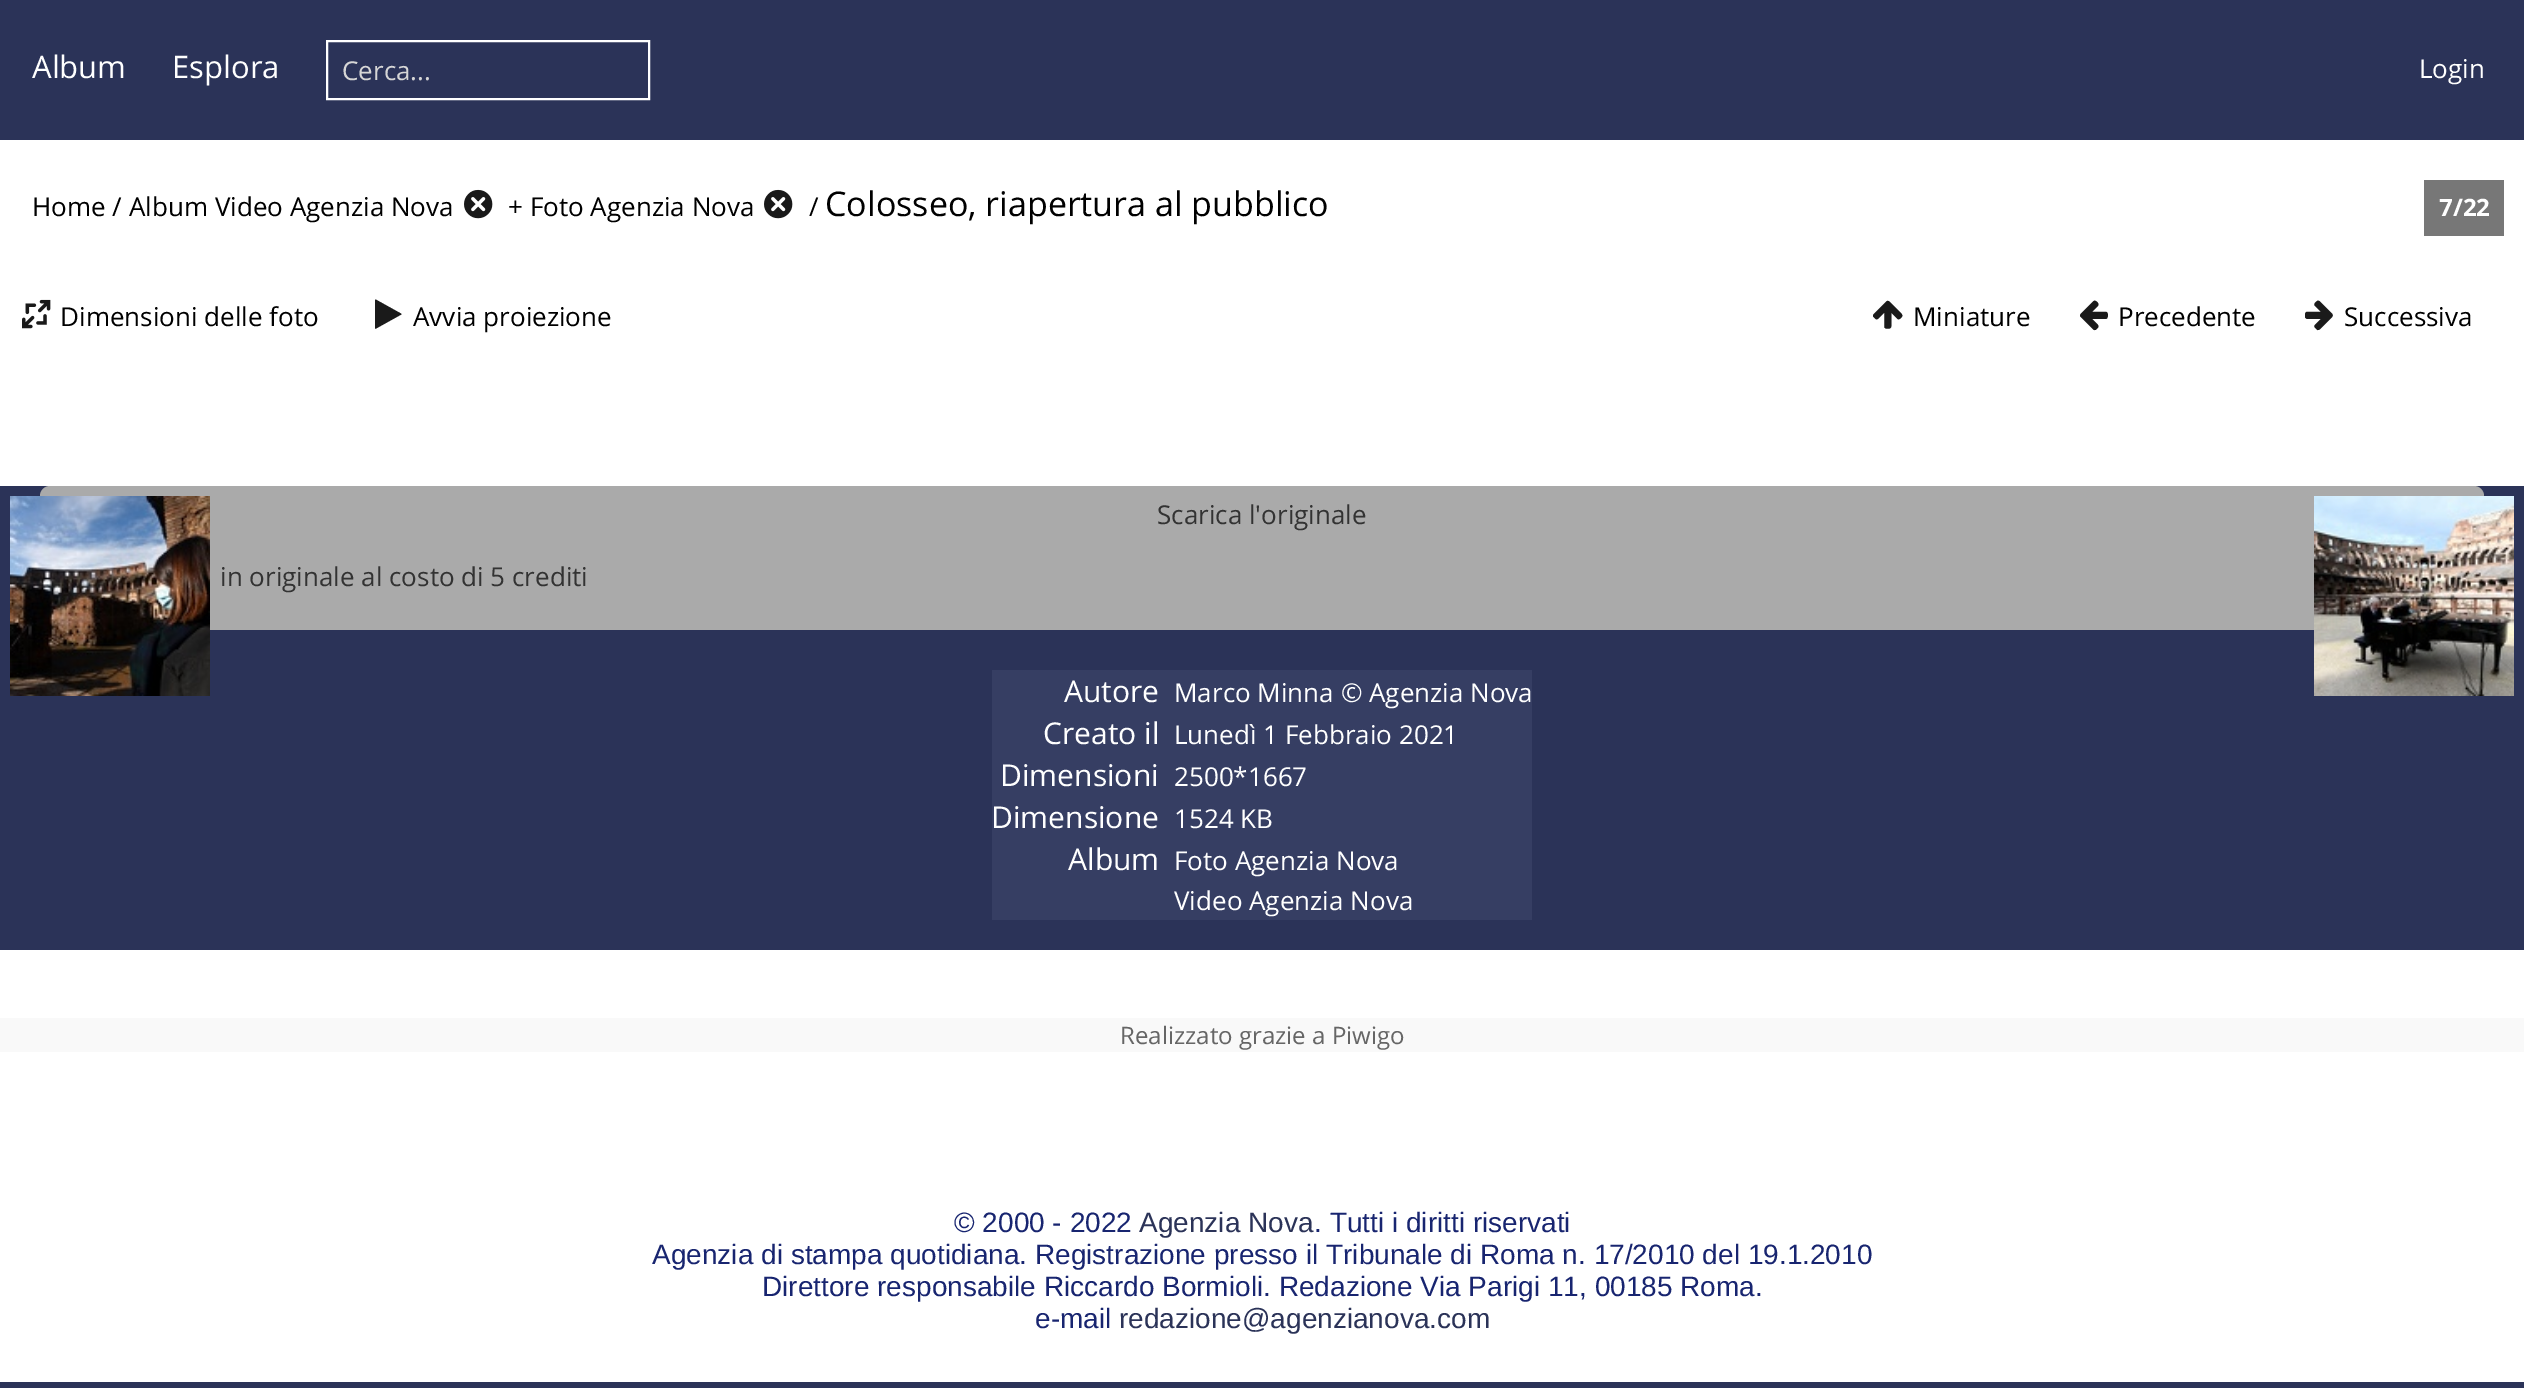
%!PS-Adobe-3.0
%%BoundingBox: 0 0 2524 1388
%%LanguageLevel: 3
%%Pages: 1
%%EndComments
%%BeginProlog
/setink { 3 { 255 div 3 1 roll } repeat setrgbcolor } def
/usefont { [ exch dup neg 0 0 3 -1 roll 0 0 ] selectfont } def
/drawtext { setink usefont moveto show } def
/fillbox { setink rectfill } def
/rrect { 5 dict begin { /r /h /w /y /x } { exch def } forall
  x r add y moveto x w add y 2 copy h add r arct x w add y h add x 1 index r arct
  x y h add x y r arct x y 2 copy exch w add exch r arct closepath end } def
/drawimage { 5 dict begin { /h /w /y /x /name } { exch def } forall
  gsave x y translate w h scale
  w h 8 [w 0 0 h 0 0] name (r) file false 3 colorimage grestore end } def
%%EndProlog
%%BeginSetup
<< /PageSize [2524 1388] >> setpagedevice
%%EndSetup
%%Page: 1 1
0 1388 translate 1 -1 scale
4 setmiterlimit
0 0 2524 1388 255 255 255 fillbox
0 0 2524 140 43 51 88 fillbox
(Album) 32 78 /OpenSans-Regular 31 255 255 255 drawtext
(Esplora) 172 78 /OpenSans-Regular 31 255 255 255 drawtext
2 setlinewidth
327 41 322 58 rectstroke
(Cerca...) 342 80 /OpenSans-Regular 26 214 214 214 drawtext
(Login) 2419 78 /OpenSans-Regular 26 255 255 255 drawtext
(Home / Album Video Agenzia Nova) 32 216 /OpenSans-Regular 26 0 0 0 drawtext
(assets/img1.rgb) 464 189 29 30 drawimage
(+ Foto Agenzia Nova) 508 216 /OpenSans-Regular 26 0 0 0 drawtext
(assets/img1.rgb) 764 189 29 30 drawimage
(/) 809 216 /OpenSans-Regular 26 0 0 0 drawtext
(Colosseo, riapertura al pubblico) 825 216 /OpenSans-Regular 34 0 0 0 drawtext
2424 180 80 56 119 119 119 fillbox
(7/22) 2439 216 /OpenSans-Bold 24 255 255 255 drawtext
(assets/img2.rgb) 22 299 29 30 drawimage
(Dimensioni delle foto) 60 326 /OpenSans-Regular 26 0 0 0 drawtext
(▶) 375 326 /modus-Regular 34 26 26 26 drawtext
(Avvia proiezione) 413 326 /OpenSans-Regular 26 0 0 0 drawtext
(↑) 1873 326 /modus-Regular 34 26 26 26 drawtext
(Miniature) 1913 326 /OpenSans-Regular 26 0 0 0 drawtext
(←) 2080 326 /modus-Regular 34 26 26 26 drawtext
(Precedente) 2118 326 /OpenSans-Regular 26 0 0 0 drawtext
(→) 2305 326 /modus-Regular 34 26 26 26 drawtext
(Successiva) 2344 326 /OpenSans-Regular 26 0 0 0 drawtext
0 486 2524 464 43 51 88 fillbox
170 170 170 setink
40 486 2444 144 10 rrect fill
(assets/img3.rgb) 10 496 200 200 drawimage
(assets/img4.rgb) 2314 496 200 200 drawimage
(Scarica l'originale) 1157 524 /OpenSans-Regular 26 51 51 51 drawtext
(in originale al costo di 5 crediti) 220 586 /OpenSans-Regular 26 51 51 51 drawtext
992 670 540 250 54 62 99 fillbox
(Autore) 1064 702 /OpenSans-Regular 30 255 255 255 drawtext
(Marco Minna © Agenzia Nova) 1174 702 /OpenSans-Regular 26 255 255 255 drawtext
(Creato il) 1043 744 /OpenSans-Regular 30 255 255 255 drawtext
(Lunedì 1 Febbraio 2021) 1174 744 /OpenSans-Regular 26 255 255 255 drawtext
(Dimensioni) 1000 786 /OpenSans-Regular 30 255 255 255 drawtext
(2500*1667) 1174 786 /OpenSans-Regular 26 255 255 255 drawtext
(Dimensione) 991 828 /OpenSans-Regular 30 255 255 255 drawtext
(1524 KB) 1174 828 /OpenSans-Regular 26 255 255 255 drawtext
(Album) 1068 870 /OpenSans-Regular 30 255 255 255 drawtext
(Foto Agenzia Nova) 1174 870 /OpenSans-Regular 26 255 255 255 drawtext
(Video Agenzia Nova) 1174 910 /OpenSans-Regular 26 255 255 255 drawtext
0 1018 2524 34 249 249 249 fillbox
(Realizzato grazie a Piwigo) 1120 1044 /OpenSans-Regular 24 102 102 102 drawtext
0 1382 2524 6 43 51 88 fillbox
(© 2000 - 2022) 954 1232 /LiberationSans-Regular 28 24 37 112 drawtext
(Agenzia Nova) 1139 1232 /LiberationSans-Regular 28 43 51 88 drawtext
(. Tutti i diritti riservati) 1314 1232 /LiberationSans-Regular 28 24 37 112 drawtext
(Agenzia di stampa quotidiana. Registrazione presso il Tribunale di Roma n. 17/2010 del 19.1.2010) 652 1264 /LiberationSans-Regular 28 24 37 112 drawtext
(Direttore responsabile Riccardo Bormioli. Redazione Via Parigi 11, 00185 Roma.) 762 1296 /LiberationSans-Regular 28 24 37 112 drawtext
(e-mail) 1035 1328 /LiberationSans-Regular 28 24 37 112 drawtext
(redazione@agenzianova.com) 1119 1328 /LiberationSans-Regular 28 43 51 88 drawtext
showpage
%%EOF
